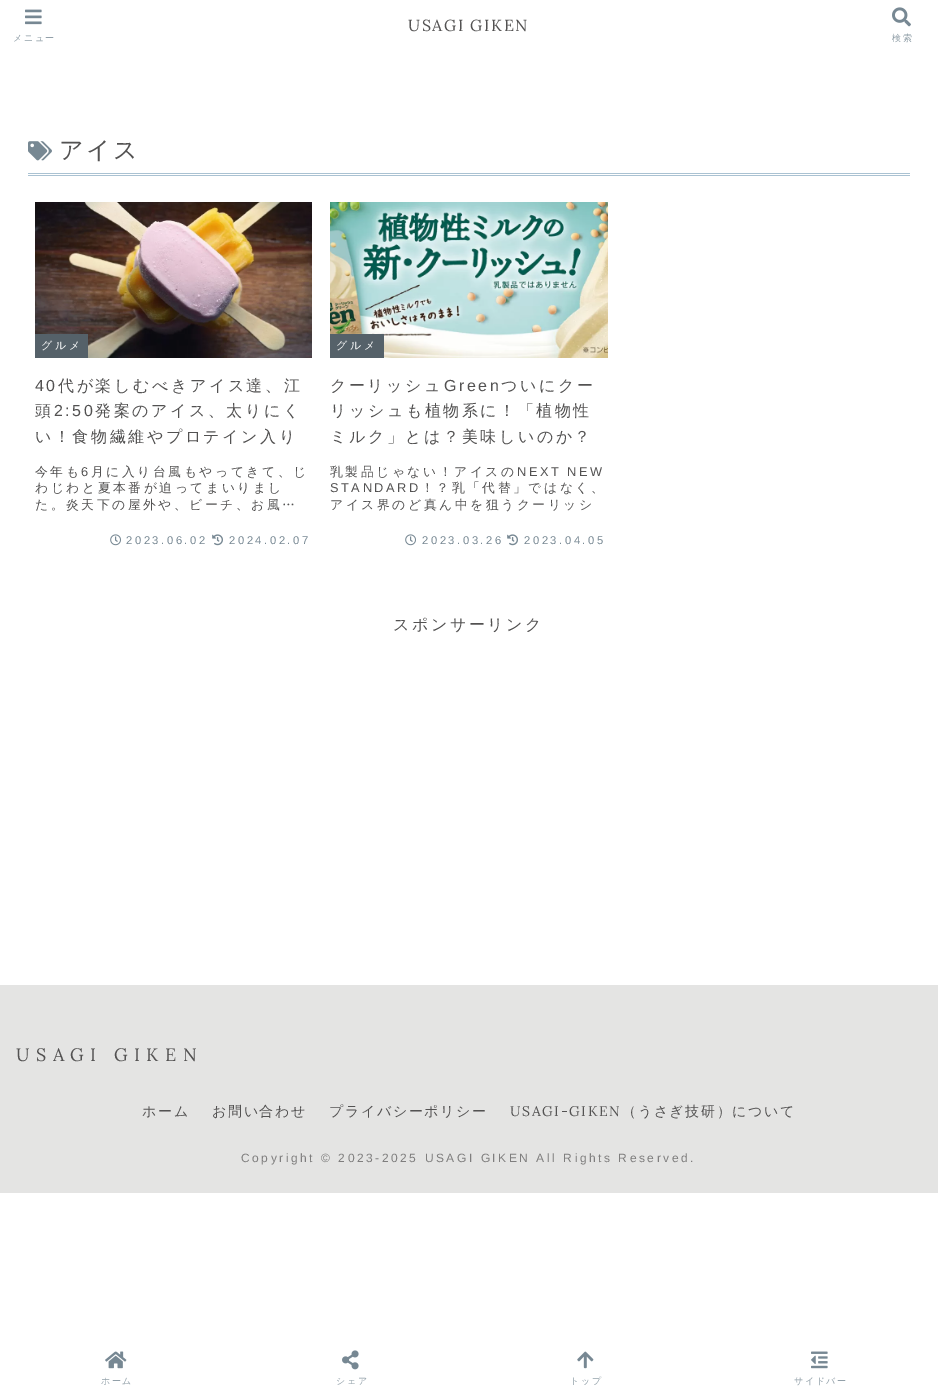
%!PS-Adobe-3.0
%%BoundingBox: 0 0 938 1393
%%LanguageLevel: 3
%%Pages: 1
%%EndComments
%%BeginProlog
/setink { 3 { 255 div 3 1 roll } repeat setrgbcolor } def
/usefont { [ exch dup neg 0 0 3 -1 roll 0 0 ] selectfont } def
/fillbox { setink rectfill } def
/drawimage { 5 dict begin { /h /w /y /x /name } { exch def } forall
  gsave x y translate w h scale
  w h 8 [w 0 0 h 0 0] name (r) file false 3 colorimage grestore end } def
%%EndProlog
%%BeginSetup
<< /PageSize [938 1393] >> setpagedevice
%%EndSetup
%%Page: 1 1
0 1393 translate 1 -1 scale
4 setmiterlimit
0 0 938 1393 255 255 255 fillbox
/Lora-Regular 16 usefont
83 82 82 setink
408 31 moveto 1.6 0 (USAGI GIKEN) ashow
(assets/img1.rgb) 25 9 17 16 drawimage
/WenQuanYiZenHei-Medium 9 usefont
146 160 169 setink
13 41 moveto 1.6 0 (メニュー) ashow
(assets/img2.rgb) 892 7 19 20 drawimage
892 41 moveto 1.6 0 (検索) ashow
28 173 882 1 170 194 210 fillbox
28 175 882 1 170 194 210 fillbox
(assets/img3.rgb) 28 141 24 20 drawimage
/WenQuanYiZenHei-Medium 24 usefont
83 82 82 setink
59 158 moveto 2.55 0 (アイス) ashow
(assets/img4.rgb) 35 202 277 156 drawimage
35 334 53 24 85 97 105 fillbox
/WenQuanYiZenHei-Medium 11 usefont
255 255 255 setink
41 349 moveto 2.55 0 (グルメ) ashow
/LiberationSans-Regular 16 usefont
83 82 82 setink
35 391 moveto 2.55 0 (40) ashow
/WenQuanYiZenHei-Medium 16 usefont
58 391 moveto 2.55 0 (代が楽しむべきアイス達、江) ashow
35 416 moveto 2.55 0 (頭) ashow
/LiberationSans-Regular 16 usefont
54 416 moveto 2.55 0 (2:50) ashow
/WenQuanYiZenHei-Medium 16 usefont
95 416 moveto 2.55 0 (発案のアイス、太りにく) ashow
35 442 moveto 2.55 0 (い！食物繊維やプロテイン入り) ashow
/WenQuanYiZenHei-Medium 12.8 usefont
35 476 moveto 2.55 0 (今年も) ashow
/LiberationSans-Regular 12.8 usefont
81 476 moveto 2.55 0 (6) ashow
/WenQuanYiZenHei-Medium 12.8 usefont
91 476 moveto 2.55 0 (月に入り台風もやってきて、じ) ashow
35 492 moveto 2.55 0 (わじわと夏本番が迫ってまいりまし) ashow
35 509 moveto 2.55 0 (た。炎天下の屋外や、ビーチ、お風…) ashow
(assets/img5.rgb) 110 534 11 12 drawimage
/LiberationSans-Regular 11.25 usefont
119 136 147 setink
126 544 moveto 2.55 0 (2023.06.02) ashow
(assets/img6.rgb) 212 534 11 12 drawimage
229 544 moveto 2.55 0 (2024.02.07) ashow
(assets/img7.rgb) 330 202 278 156 drawimage
330 334 54 24 85 97 105 fillbox
/WenQuanYiZenHei-Medium 11 usefont
255 255 255 setink
336 349 moveto 2.55 0 (グルメ) ashow
/WenQuanYiZenHei-Medium 16 usefont
83 82 82 setink
330 391 moveto 2.55 0 (クーリッシュ) ashow
/LiberationSans-Regular 16 usefont
444 391 moveto 2.55 0 (Green) ashow
/WenQuanYiZenHei-Medium 16 usefont
501 391 moveto 2.55 0 (ついにクー) ashow
330 416 moveto 2.55 0 (リッシュも植物系に！「植物性) ashow
330 442 moveto 2.55 0 (ミルク」とは？美味しいのか？) ashow
/WenQuanYiZenHei-Medium 12.8 usefont
330 476 moveto 2.55 0 (乳製品じゃない！アイスの) ashow
/LiberationSans-Regular 12.8 usefont
517 476 moveto 2.55 0 (NEXT NEW) ashow
330 492 moveto 2.55 0 (STANDARD) ashow
/WenQuanYiZenHei-Medium 12.8 usefont
421 492 moveto 2.55 0 (！？乳「代替」ではなく、) ashow
330 509 moveto 2.55 0 (アイス界のど真ん中を狙うクーリッシ) ashow
(assets/img5.rgb) 405 534 11 12 drawimage
/LiberationSans-Regular 11.25 usefont
119 136 147 setink
422 544 moveto 2.55 0 (2023.03.26) ashow
(assets/img6.rgb) 507 534 11 12 drawimage
524 544 moveto 2.55 0 (2023.04.05) ashow
/WenQuanYiZenHei-Medium 16 usefont
83 82 82 setink
393 630 moveto 2.55 0 (スポンサーリンク) ashow
0 985 938 208 228 228 227 fillbox
/Lora-Regular 18 usefont
83 82 82 setink
16 1061 moveto 6.4 0 (USAGI GIKEN) ashow
/WenQuanYiZenHei-Medium 14 usefont
142 1116 moveto 1.6 0 (ホーム) ashow
212 1116 moveto 1.6 0 (お問い合わせ) ashow
329 1116 moveto 1.6 0 (プライバシーポリシー) ashow
/Lora-Regular 14 usefont
510 1116 moveto 1.6 0 (USAGI-GIKEN) ashow
/WenQuanYiZenHei-Medium 14 usefont
622 1116 moveto 1.6 0 (（うさぎ技研）について) ashow
/LiberationSans-Regular 12 usefont
127 126 126 setink
241 1162 moveto 2.55 0 (Copyright © 2023-2025 USAGI GIKEN All Rights Reserved.) ashow
(assets/img8.rgb) 105 1351 22 18 drawimage
/WenQuanYiZenHei-Medium 9 usefont
146 160 169 setink
101 1384 moveto 1.6 0 (ホーム) ashow
(assets/img9.rgb) 342 1350 17 20 drawimage
336 1384 moveto 1.6 0 (シェア) ashow
(assets/img10.rgb) 577 1351 17 18 drawimage
570 1384 moveto 1.6 0 (トップ) ashow
(assets/img11.rgb) 811 1351 17 18 drawimage
794 1384 moveto 1.6 0 (サイドバー) ashow
showpage
%%EOF
